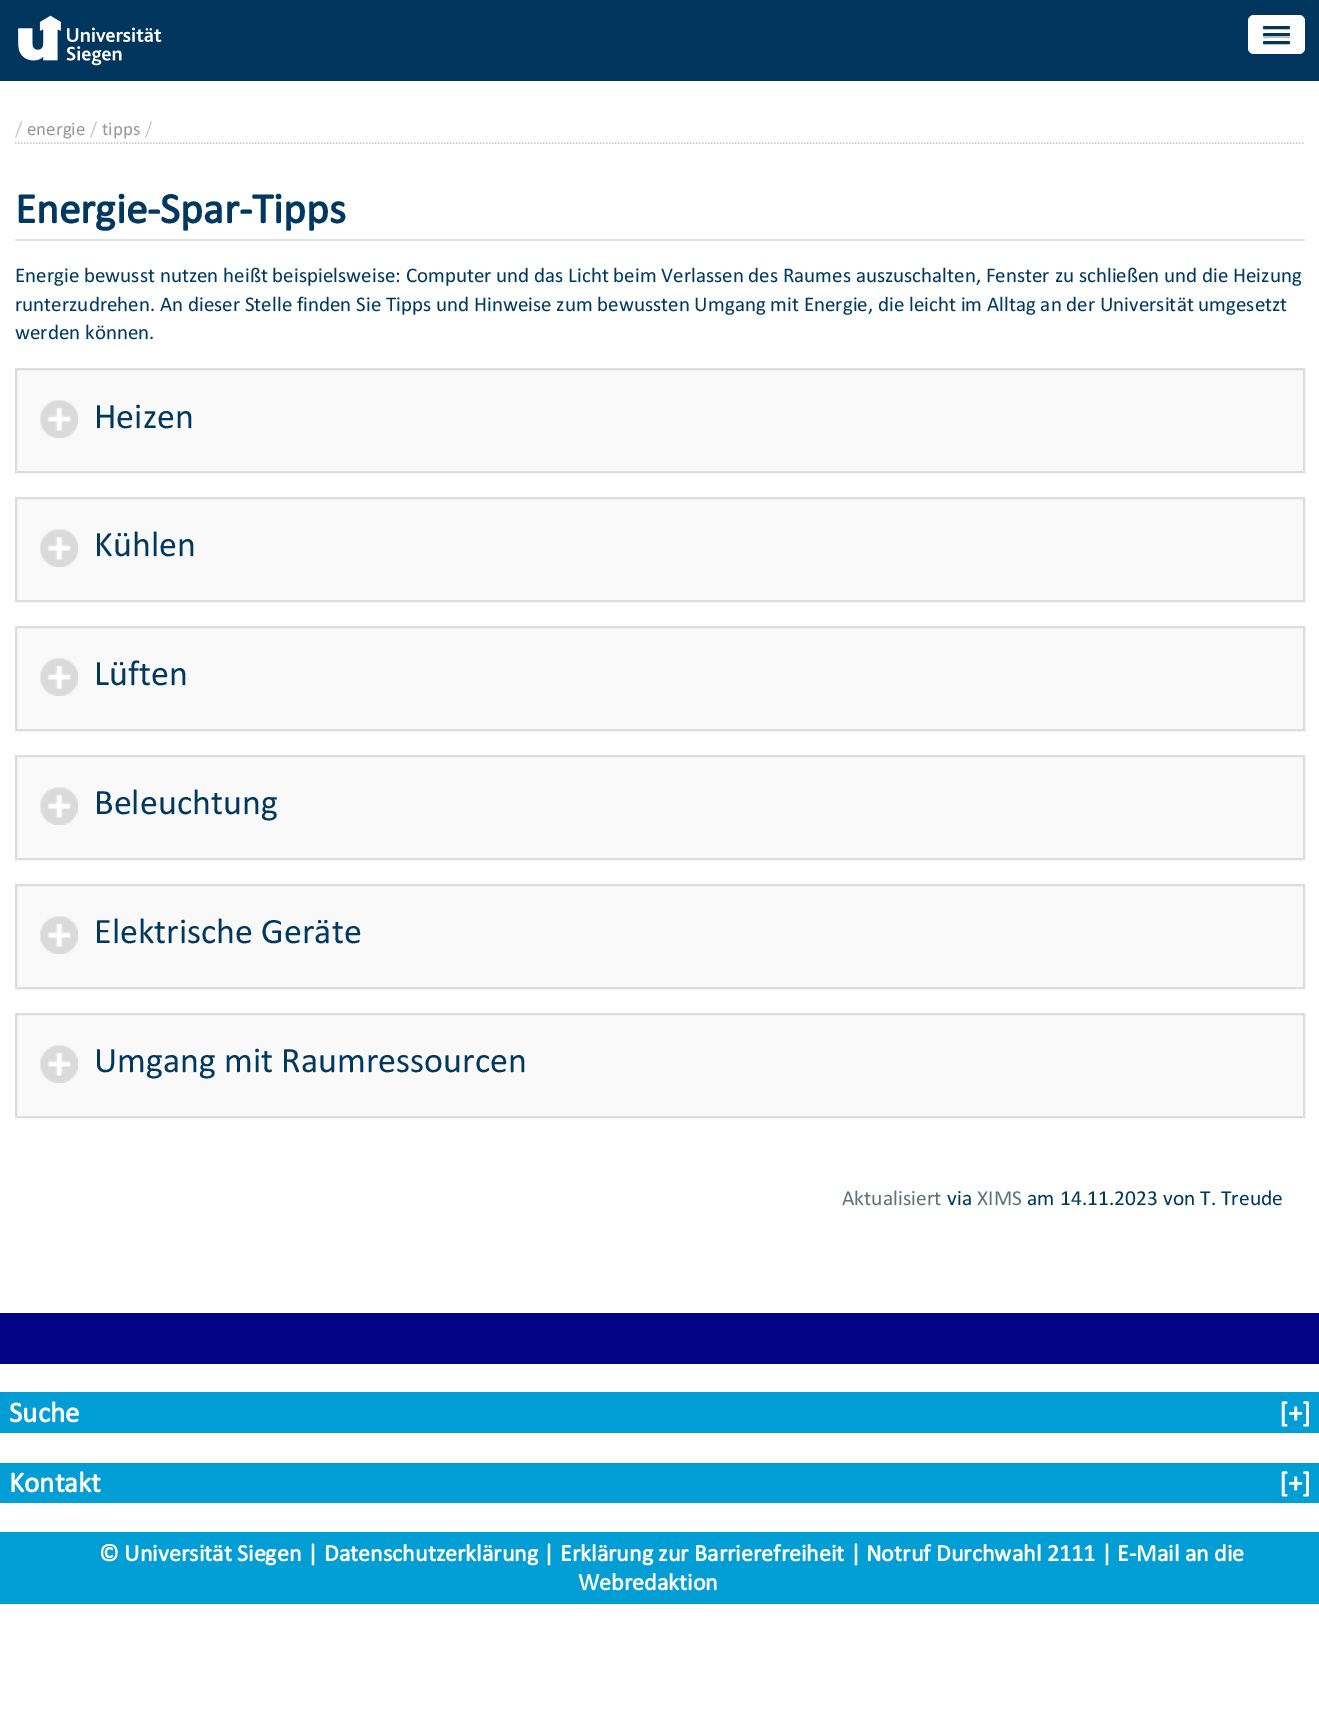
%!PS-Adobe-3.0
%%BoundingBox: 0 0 1319 1718
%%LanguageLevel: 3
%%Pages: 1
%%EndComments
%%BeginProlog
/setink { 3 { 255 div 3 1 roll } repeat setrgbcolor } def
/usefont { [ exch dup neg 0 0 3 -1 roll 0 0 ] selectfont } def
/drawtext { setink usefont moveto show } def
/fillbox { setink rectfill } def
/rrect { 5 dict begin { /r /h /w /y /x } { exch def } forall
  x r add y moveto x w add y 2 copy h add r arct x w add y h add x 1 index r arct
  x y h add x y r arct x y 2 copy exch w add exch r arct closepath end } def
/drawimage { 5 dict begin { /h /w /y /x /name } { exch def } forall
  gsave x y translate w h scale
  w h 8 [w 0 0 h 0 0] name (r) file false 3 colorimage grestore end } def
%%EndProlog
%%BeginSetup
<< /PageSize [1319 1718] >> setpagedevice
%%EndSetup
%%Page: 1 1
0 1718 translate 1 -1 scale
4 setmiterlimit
0 0 1319 1718 255 255 255 fillbox
0 0 1319 81 0 54 94 fillbox
(assets/img1.rgb) 18 15 144 51 drawimage
255 255 255 setink
1248 15 57 39 6 rrect fill
191 191 191 setink
1263 27.5 moveto 1261.5 31 1268.5 30 1268.5 30 curveto 1284.5 30 lineto 1284.5 30 1291.5 31 1290 27.5 curveto 1289.5 28 1289 28.5 1288.5 28.5 curveto 1264.5 28.5 lineto 1264 28.5 1263.5 28 1263 27.5 curveto closepath fill
0 54 94 setink
1263 26 27 3 1.5 rrect fill
191 191 191 setink
1263.5 35.5 moveto 1263 37 lineto 1263.5 39 1268 38 1268.5 38 curveto 1284.5 38 lineto 1285 38 1289.5 39 1290 37 curveto 1289.5 35.5 lineto 1288.5 36 lineto 1264.5 36 lineto closepath fill
0 54 94 setink
1263 33 27 3 1.5 rrect fill
191 191 191 setink
1263 42.5 moveto 1261.5 46 1268.5 45 1268.5 45 curveto 1284.5 45 lineto 1284.5 45 1291.5 46 1290 42.5 curveto 1289.5 43 1289 43.5 1288.5 43.5 curveto 1264.5 43.5 lineto 1264 43.5 1263.5 43 1263 42.5 curveto closepath fill
0 54 94 setink
1263 41 27 3 1.5 rrect fill
204 204 204 setink
1.5 setlinewidth
[1.5 1.5] 0 setdash
15 143 moveto 1305 143 lineto stroke
(/) 15 135 /Calibri-Regular 19 204 204 204 drawtext
(energie) 27 135 /Calibri-Regular 19 153 153 153 drawtext
(/) 90 135 /Calibri-Regular 19 204 204 204 drawtext
(tipps) 102 135 /Calibri-Regular 19 153 153 153 drawtext
(/) 145 135 /Calibri-Regular 19 204 204 204 drawtext
15 239 1290 2 222 226 230 fillbox
(Energie-Spar-Tipps) 15 223 /Calibri-Bold 43.25 0 56 95 drawtext
(Energie bewusst nutzen heißt beispielsweise: Computer und das Licht beim Verlassen des Raumes auszuschalten, Fenster zu schließen und die Heizung) 15 282 /Calibri-Regular 21 0 56 95 drawtext
(runterzudrehen. An dieser Stelle finden Sie Tipps und Hinweise zum bewussten Umgang mit Energie, die leicht im Alltag an der Universität umgesetzt) 15 311 /Calibri-Regular 21 0 56 95 drawtext
(werden können.) 15 339 /Calibri-Regular 21 0 56 95 drawtext
249 249 249 setink
16 369 moveto 1304 369 lineto 1304 472 lineto 16 472 lineto closepath gsave fill grestore
221 221 221 setink
2 setlinewidth
[] 0 setdash
stroke
(assets/img2.rgb) 40 400 38 38 drawimage
(Heizen) 94 428 /Calibri-Regular 36 0 56 95 drawtext
249 249 249 setink
16 498 moveto 1304 498 lineto 1304 601 lineto 16 601 lineto closepath gsave fill grestore
221 221 221 setink
stroke
(assets/img2.rgb) 40 529 38 38 drawimage
(Kühlen) 94 556 /Calibri-Regular 36 0 56 95 drawtext
249 249 249 setink
16 627 moveto 1304 627 lineto 1304 730 lineto 16 730 lineto closepath gsave fill grestore
221 221 221 setink
stroke
(assets/img2.rgb) 40 658 38 38 drawimage
(Lüften) 94 685 /Calibri-Regular 36 0 56 95 drawtext
249 249 249 setink
16 756 moveto 1304 756 lineto 1304 859 lineto 16 859 lineto closepath gsave fill grestore
221 221 221 setink
stroke
(assets/img2.rgb) 40 787 38 38 drawimage
(Beleuchtung) 94 814 /Calibri-Regular 36 0 56 95 drawtext
249 249 249 setink
16 885 moveto 1304 885 lineto 1304 988 lineto 16 988 lineto closepath gsave fill grestore
221 221 221 setink
stroke
(assets/img2.rgb) 40 916 38 38 drawimage
(Elektrische Geräte) 94 943 /Calibri-Regular 36 0 56 95 drawtext
249 249 249 setink
16 1014 moveto 1304 1014 lineto 1304 1117 lineto 16 1117 lineto closepath gsave fill grestore
221 221 221 setink
stroke
(assets/img2.rgb) 40 1045 38 38 drawimage
(Umgang mit Raumressourcen) 94 1072 /Calibri-Regular 36 0 56 95 drawtext
(Aktualisiert) 842 1205 /Calibri-Regular 21.5 100 114 127 drawtext
(via) 947 1205 /Calibri-Regular 21.5 0 56 95 drawtext
(XIMS) 977 1205 /Calibri-Regular 21.5 100 114 127 drawtext
(am) 1027 1205 /Calibri-Regular 21.5 0 56 95 drawtext
(14.11.2023) 1060 1205 /Calibri-Regular 21.5 0 56 95 drawtext
(von T. Treude) 1163 1205 /Calibri-Regular 21.5 0 56 95 drawtext
0 1313 1319 51 3 3 133 fillbox
0 1392 1319 41 0 158 212 fillbox
(Suche) 9 1422 /Calibri-Bold 29 255 255 255 drawtext
([+]) 1279 1422 /Calibri-Bold 29 255 255 255 drawtext
0 1463 1319 40 0 158 212 fillbox
(Kontakt) 9 1492 /Calibri-Bold 29 255 255 255 drawtext
([+]) 1279 1492 /Calibri-Bold 29 255 255 255 drawtext
0 1532 1319 72 0 158 212 fillbox
(© Universität Siegen) 99 1561 /Calibri-Bold 24 255 255 255 drawtext
(|) 307 1561 /Calibri-Bold 24 255 255 255 drawtext
(Datenschutzerklärung) 324 1561 /Calibri-Bold 24 255 255 255 drawtext
(|) 543 1561 /Calibri-Bold 24 255 255 255 drawtext
(Erklärung zur Barrierefreiheit) 560 1561 /Calibri-Bold 24 255 255 255 drawtext
(|) 850 1561 /Calibri-Bold 24 255 255 255 drawtext
(Notruf Durchwahl 2111) 866 1561 /Calibri-Bold 24 255 255 255 drawtext
(|) 1101 1561 /Calibri-Bold 24 255 255 255 drawtext
(E-Mail an die) 1117 1561 /Calibri-Bold 24 255 255 255 drawtext
(Webredaktion) 578 1590 /Calibri-Bold 24 255 255 255 drawtext
showpage
%%EOF
